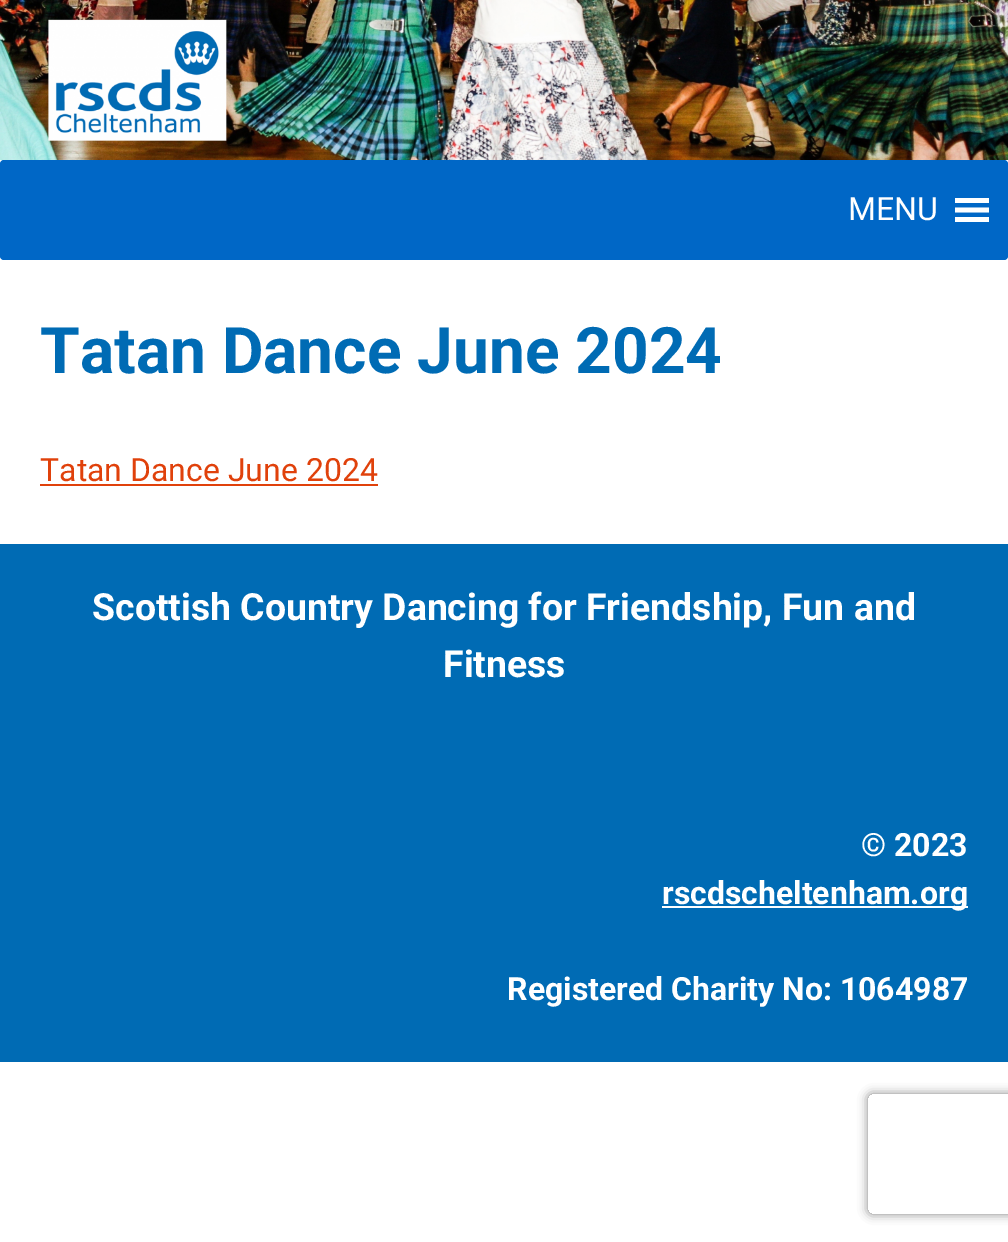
%!PS-Adobe-3.0
%%BoundingBox: 0 0 1008 1242
%%LanguageLevel: 3
%%Pages: 1
%%EndComments
%%BeginProlog
/setink { 3 { 255 div 3 1 roll } repeat setrgbcolor } def
/usefont { [ exch dup neg 0 0 3 -1 roll 0 0 ] selectfont } def
/drawtext { setink usefont moveto show } def
/fillbox { setink rectfill } def
/setalpha { dup .setfillconstantalpha .setstrokeconstantalpha } def
/rrect { 5 dict begin { /r /h /w /y /x } { exch def } forall
  x r add y moveto x w add y 2 copy h add r arct x w add y h add x 1 index r arct
  x y h add x y r arct x y 2 copy exch w add exch r arct closepath end } def
/softshadow { 12 dict begin { /a /b /q /h /w /y /x } { exch def } forall gsave /was 0 def
  9 -2 -9 { dup b mul 4 div /e exch def 1 sub .425 mul 2.718 exch exp 1 add a .99 .min exch div /now exch def
    1 1 now sub 1 was sub div sub setalpha /was now def
    w h .min e 2 mul add 0 gt { x e sub y e sub w e 2 mul add h e 2 mul add
      q e add b .6 mul add w h .min 2 div e add .min 0 .max rrect fill } if } for grestore end } def
/drawimage { 5 dict begin { /h /w /y /x /name } { exch def } forall
  gsave x y translate w h scale
  w h 8 [w 0 0 h 0 0] name (r) file false 3 colorimage grestore end } def
%%EndProlog
%%BeginSetup
<< /PageSize [1008 1242] /PageUsesTransparency true >> setpagedevice
%%EndSetup
%%Page: 1 1
0 .pushpdf14devicefilter
0 1242 translate 1 -1 scale
4 setmiterlimit
0 0 1008 1242 255 255 255 fillbox
(assets/img1.rgb) 0 0 1008 160 drawimage
0 103 198 setink
0 160 1008 100 4 rrect fill
(MENU) 848 220 /Roboto-Regular 32 255 255 255 drawtext
955 222 moveto 989 222 lineto 989 217 lineto 955 217 lineto closepath 955 198 moveto 955 203 lineto 989 203 lineto 989 198 lineto closepath 955 212.5 moveto 989 212.5 lineto 989 207.5 lineto 955 207.5 lineto closepath fill
(Tatan Dance June 2024) 40 373 /Roboto-Bold 64 0 107 180 drawtext
(Tatan Dance June 2024) 40 481 /Roboto-Regular 32 224 65 11 drawtext
40 484 338 2 224 65 11 fillbox
0 544 1008 518 0 107 180 fillbox
(Scottish Country Dancing for Friendship, Fun and) 92 620 /Roboto-Bold 37.4 255 255 255 drawtext
(Fitness) 443 677 /Roboto-Bold 37.4 255 255 255 drawtext
(© 2023) 861 856 /Roboto-Bold 32 255 255 255 drawtext
662 906 306 2 255 255 255 fillbox
(rscdscheltenham.org) 662 904 /Roboto-Bold 32 255 255 255 drawtext
(Registered Charity No: 1064987) 507 1000 /Roboto-Bold 32 255 255 255 drawtext
gsave
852 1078 moveto 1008 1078 lineto 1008 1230 lineto 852 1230 lineto closepath 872 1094 moveto 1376 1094 lineto 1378 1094 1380 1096 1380 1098 curveto 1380 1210 lineto 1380 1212 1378 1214 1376 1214 curveto 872 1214 lineto 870 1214 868 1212 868 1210 curveto 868 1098 lineto 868 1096 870 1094 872 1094 curveto closepath eoclip newpath
128 128 128 setink
868 1094 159 120 4 5 1 softshadow
grestore
.poppdf14devicefilter showpage
%%EOF
